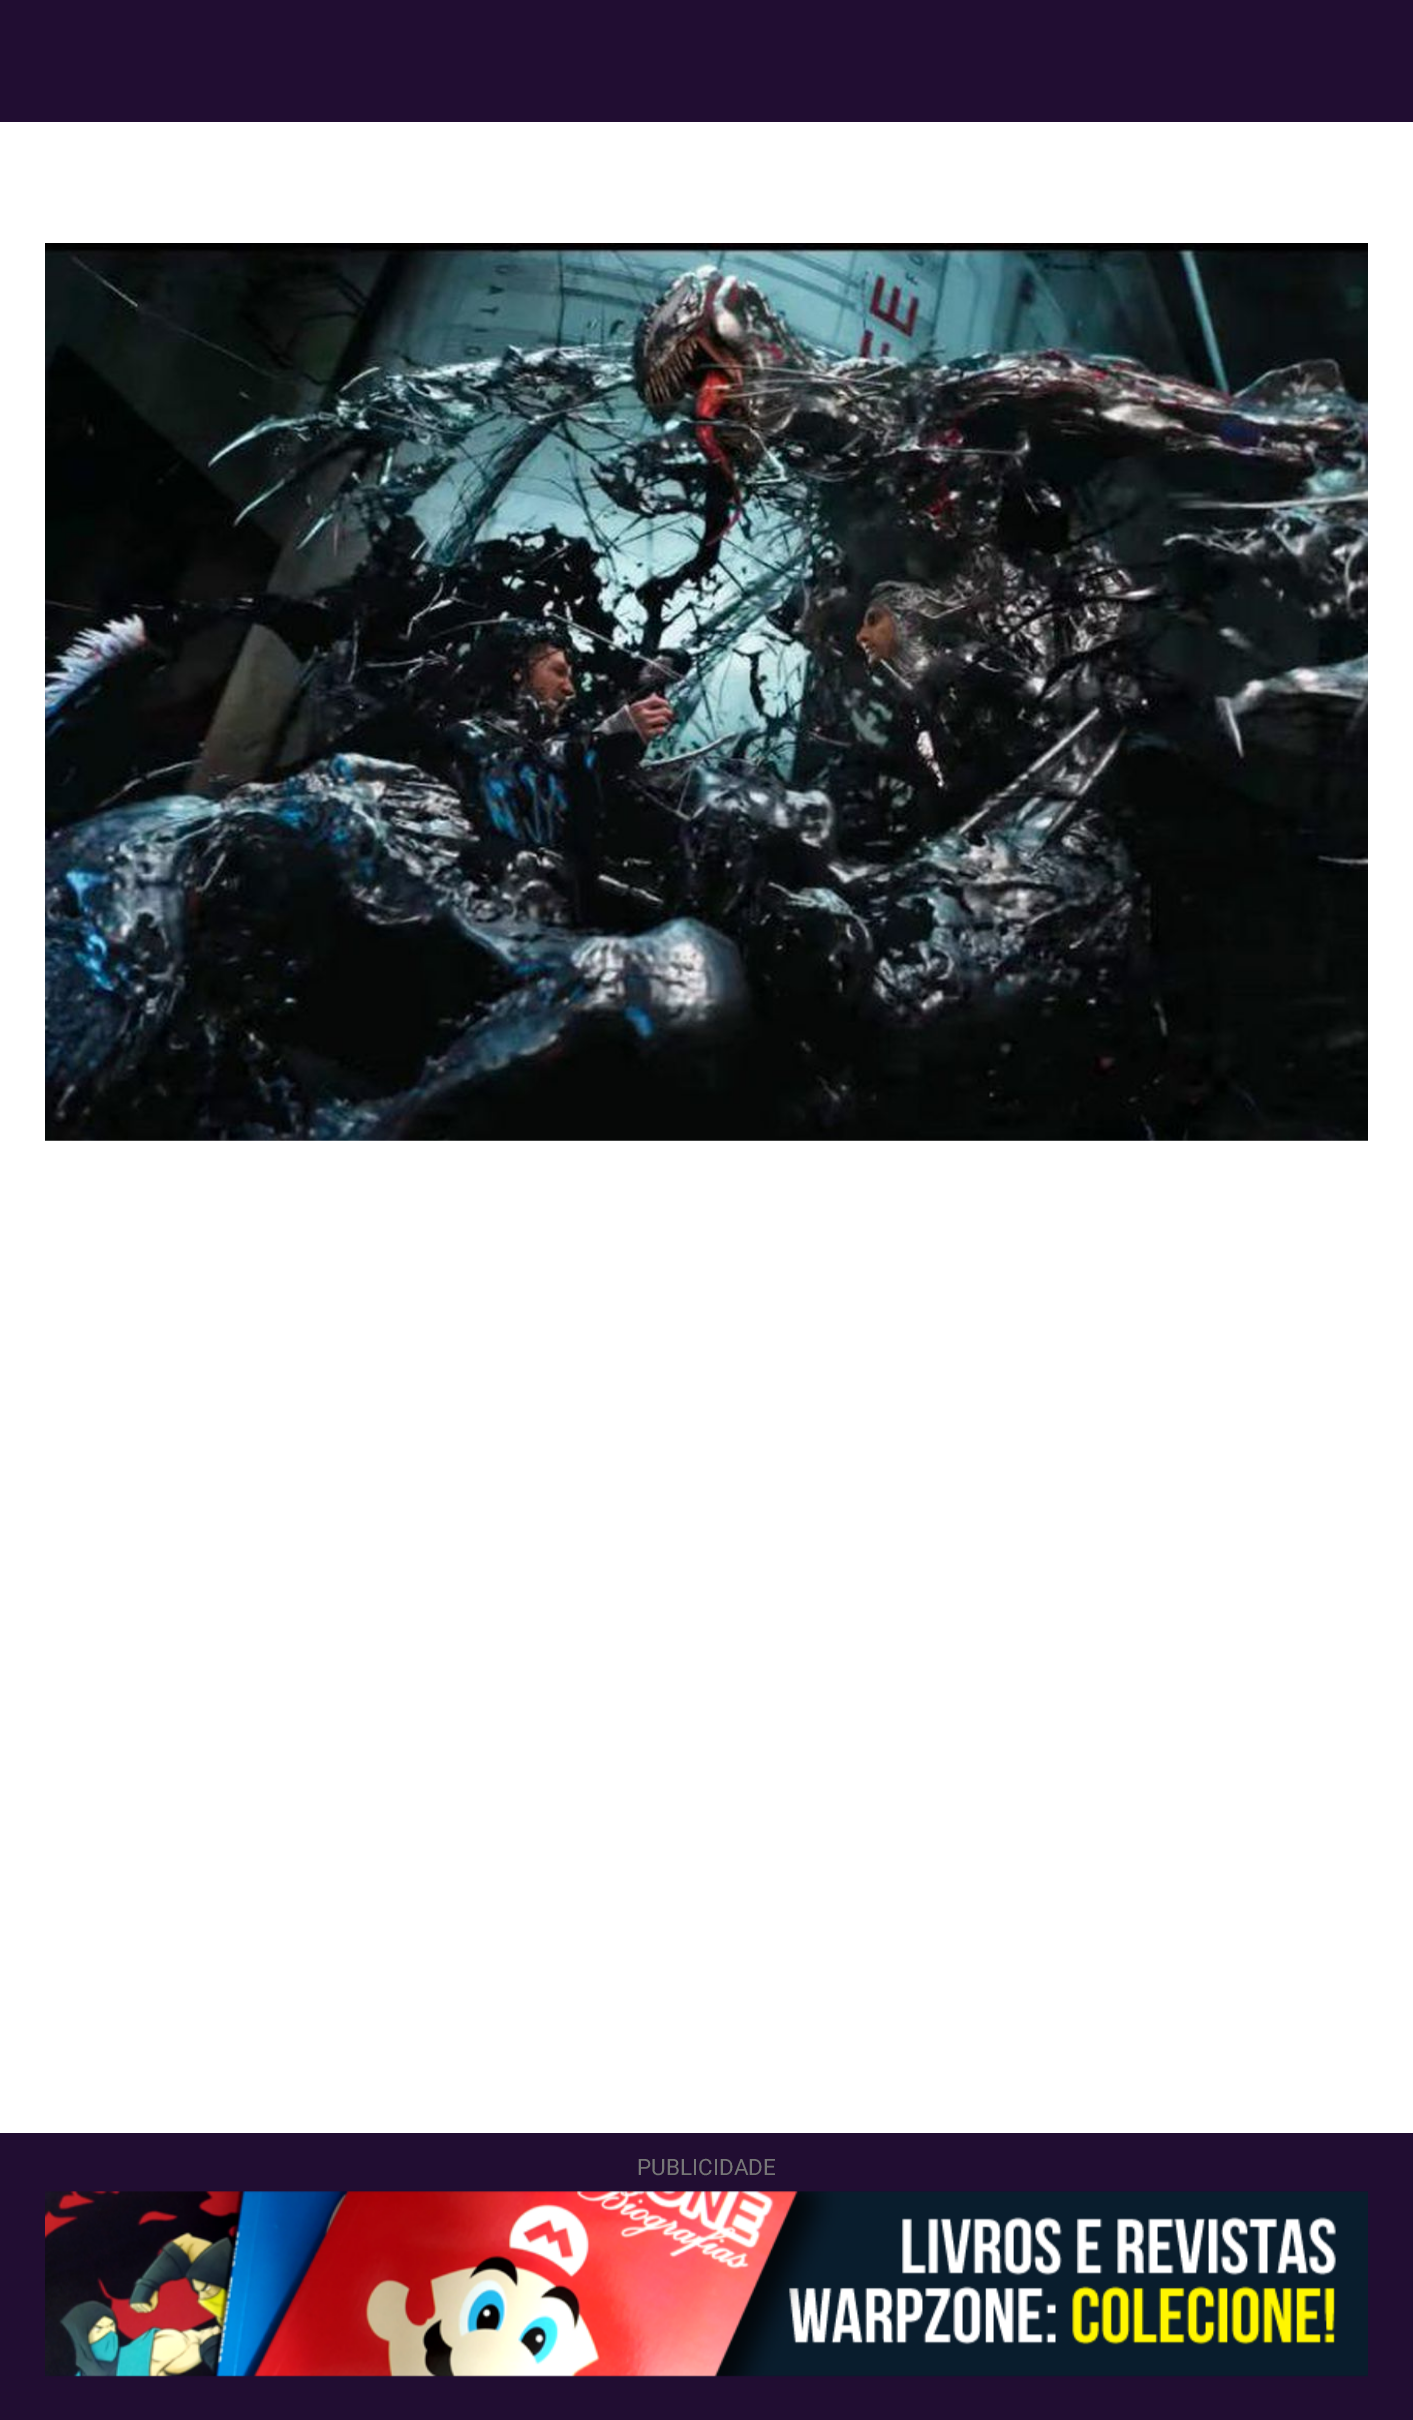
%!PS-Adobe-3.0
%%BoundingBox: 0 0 1413 2420
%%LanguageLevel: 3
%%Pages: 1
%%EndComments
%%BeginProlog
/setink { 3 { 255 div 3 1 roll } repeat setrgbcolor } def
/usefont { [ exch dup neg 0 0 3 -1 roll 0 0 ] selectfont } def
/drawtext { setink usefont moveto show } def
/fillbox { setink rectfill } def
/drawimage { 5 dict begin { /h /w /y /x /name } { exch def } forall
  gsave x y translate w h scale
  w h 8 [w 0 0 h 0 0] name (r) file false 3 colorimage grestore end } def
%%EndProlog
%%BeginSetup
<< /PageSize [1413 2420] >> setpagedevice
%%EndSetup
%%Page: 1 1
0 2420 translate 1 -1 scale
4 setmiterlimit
0 0 1413 2420 255 255 255 fillbox
0 0 1413 122 33 13 50 fillbox
(assets/img1.rgb) 45 243 1323 898 drawimage
0 2133 1413 287 33 13 50 fillbox
(PUBLICIDADE) 637 2175 /Roboto-Regular 22.5 118 118 118 drawtext
(assets/img2.rgb) 45 2191 1323 186 drawimage
showpage
%%EOF
